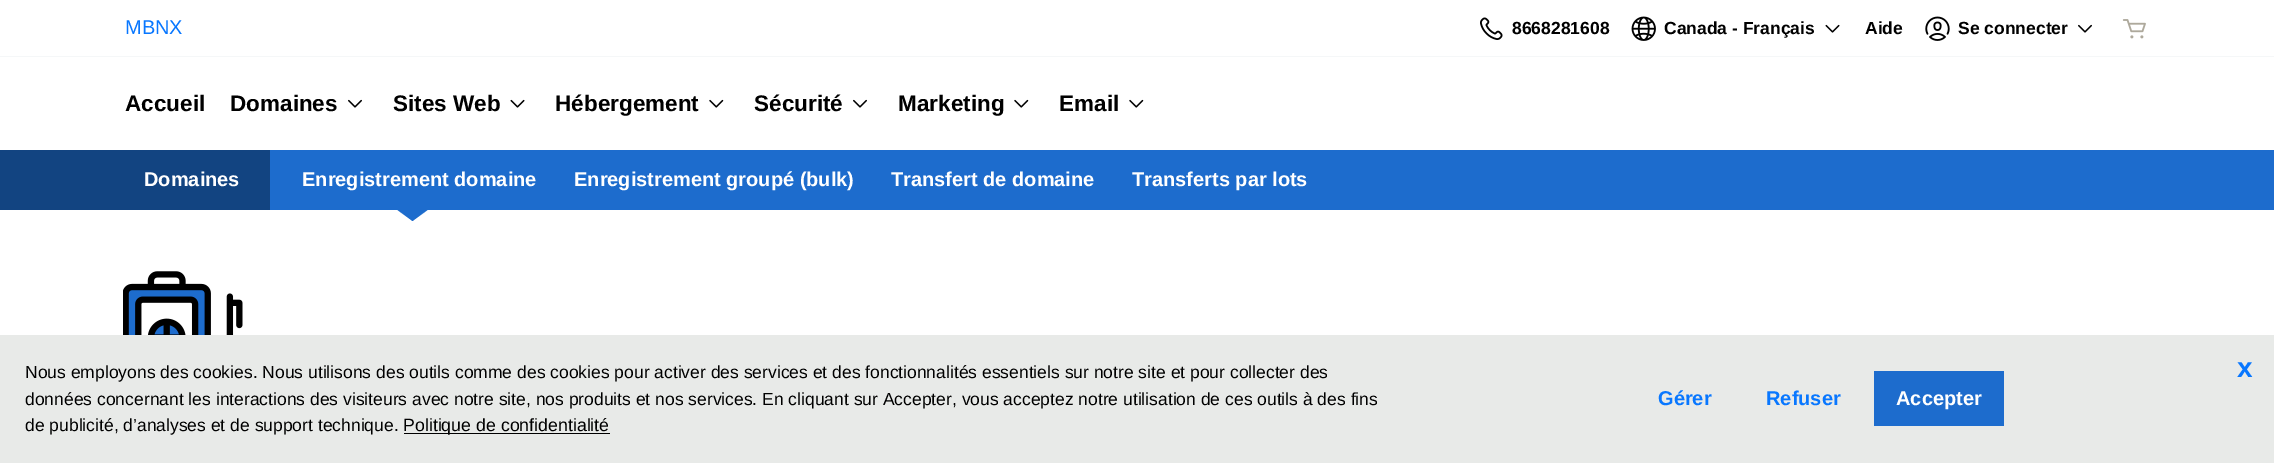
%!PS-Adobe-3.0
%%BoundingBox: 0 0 2274 463
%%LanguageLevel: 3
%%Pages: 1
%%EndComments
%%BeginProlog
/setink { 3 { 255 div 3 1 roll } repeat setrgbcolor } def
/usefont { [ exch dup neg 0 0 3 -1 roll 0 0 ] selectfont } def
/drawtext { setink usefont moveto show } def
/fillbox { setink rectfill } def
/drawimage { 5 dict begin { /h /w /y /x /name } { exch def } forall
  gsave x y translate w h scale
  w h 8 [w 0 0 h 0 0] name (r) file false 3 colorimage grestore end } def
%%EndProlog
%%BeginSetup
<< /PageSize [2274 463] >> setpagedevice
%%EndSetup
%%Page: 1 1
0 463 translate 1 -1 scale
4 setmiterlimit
0 0 2274 463 255 255 255 fillbox
0 56 2274 1 245 247 248 fillbox
(MBNX) 125 34 /LiberationSans-Regular 20 8 119 255 drawtext
(assets/img1.rgb) 1480 17 23 23 drawimage
(8668281608) 1512 34 /LiberationSans-Bold 17.5 0 0 0 drawtext
(assets/img2.rgb) 1631 16 25 25 drawimage
(Canada - Français) 1664 34 /LiberationSans-Bold 17.5 0 0 0 drawtext
(assets/img3.rgb) 1825 24 15 9 drawimage
(Aide) 1865 34 /LiberationSans-Bold 17.5 0 0 0 drawtext
(assets/img4.rgb) 1925 16 25 25 drawimage
(Se connecter) 1958 34 /LiberationSans-Bold 17.5 0 0 0 drawtext
(assets/img5.rgb) 2078 24 14 9 drawimage
(assets/img6.rgb) 2122 19 24 20 drawimage
(Accueil) 125 111 /LiberationSans-Bold 22.5 0 0 0 drawtext
(Domaines) 230 111 /LiberationSans-Bold 22.5 0 0 0 drawtext
(assets/img5.rgb) 348 99 14 9 drawimage
(Sites Web) 393 111 /LiberationSans-Bold 22.5 0 0 0 drawtext
(assets/img3.rgb) 510 99 15 9 drawimage
(Hébergement) 555 111 /LiberationSans-Bold 22.5 0 0 0 drawtext
(assets/img7.rgb) 709 99 15 9 drawimage
(Sécurité) 754 111 /LiberationSans-Bold 22.5 0 0 0 drawtext
(assets/img5.rgb) 853 99 14 9 drawimage
(Marketing) 898 111 /LiberationSans-Bold 22.5 0 0 0 drawtext
(assets/img7.rgb) 1014 99 15 9 drawimage
(Email) 1059 111 /LiberationSans-Bold 22.5 0 0 0 drawtext
(assets/img7.rgb) 1129 99 15 9 drawimage
270 150 2004 60 29 108 205 fillbox
0 150 270 60 18 68 129 fillbox
(Domaines) 144 186 /LiberationSans-Bold 20 255 255 255 drawtext
(Enregistrement domaine) 302 186 /LiberationSans-Bold 20 255 255 255 drawtext
29 108 205 setink
397.5 210 moveto 427.5 210 lineto 412.5 221 lineto closepath fill
(Enregistrement groupé \(bulk\)) 574 186 /LiberationSans-Bold 20 255 255 255 drawtext
(Transfert de domaine) 891 186 /LiberationSans-Bold 20 255 255 255 drawtext
(Transferts par lots) 1132 186 /LiberationSans-Bold 20 255 255 255 drawtext
(assets/img8.rgb) 123 271 120 64 drawimage
0 335 2274 128 232 234 232 fillbox
(Nous employons des cookies. Nous utilisons des outils comme des cookies pour activer des services et des fonctionnalités essentiels sur notre site et pour collecter des) 25 378 /LiberationSans-Regular 17.5 0 0 0 drawtext
(données concernant les interactions des visiteurs avec notre site, nos produits et nos services. En cliquant sur Accepter, vous acceptez notre utilisation de ces outils à des fins) 25 405 /LiberationSans-Regular 17.5 0 0 0 drawtext
(de publicité, d’analyses et de support technique.) 25 431 /LiberationSans-Regular 17.5 0 0 0 drawtext
404 433 206 1 0 0 0 fillbox
(Politique de confidentialité) 403 431 /LiberationSans-Regular 17.75 0 0 0 drawtext
(Gérer) 1658 405 /LiberationSans-Bold 20 8 119 255 drawtext
(Refuser) 1766 405 /LiberationSans-Bold 20 8 119 255 drawtext
1874 371 130 55 29 108 205 fillbox
(Accepter) 1896 405 /LiberationSans-Bold 20 255 255 255 drawtext
(x) 2237 377 /LiberationSans-Bold 28 8 119 255 drawtext
showpage
%%EOF
